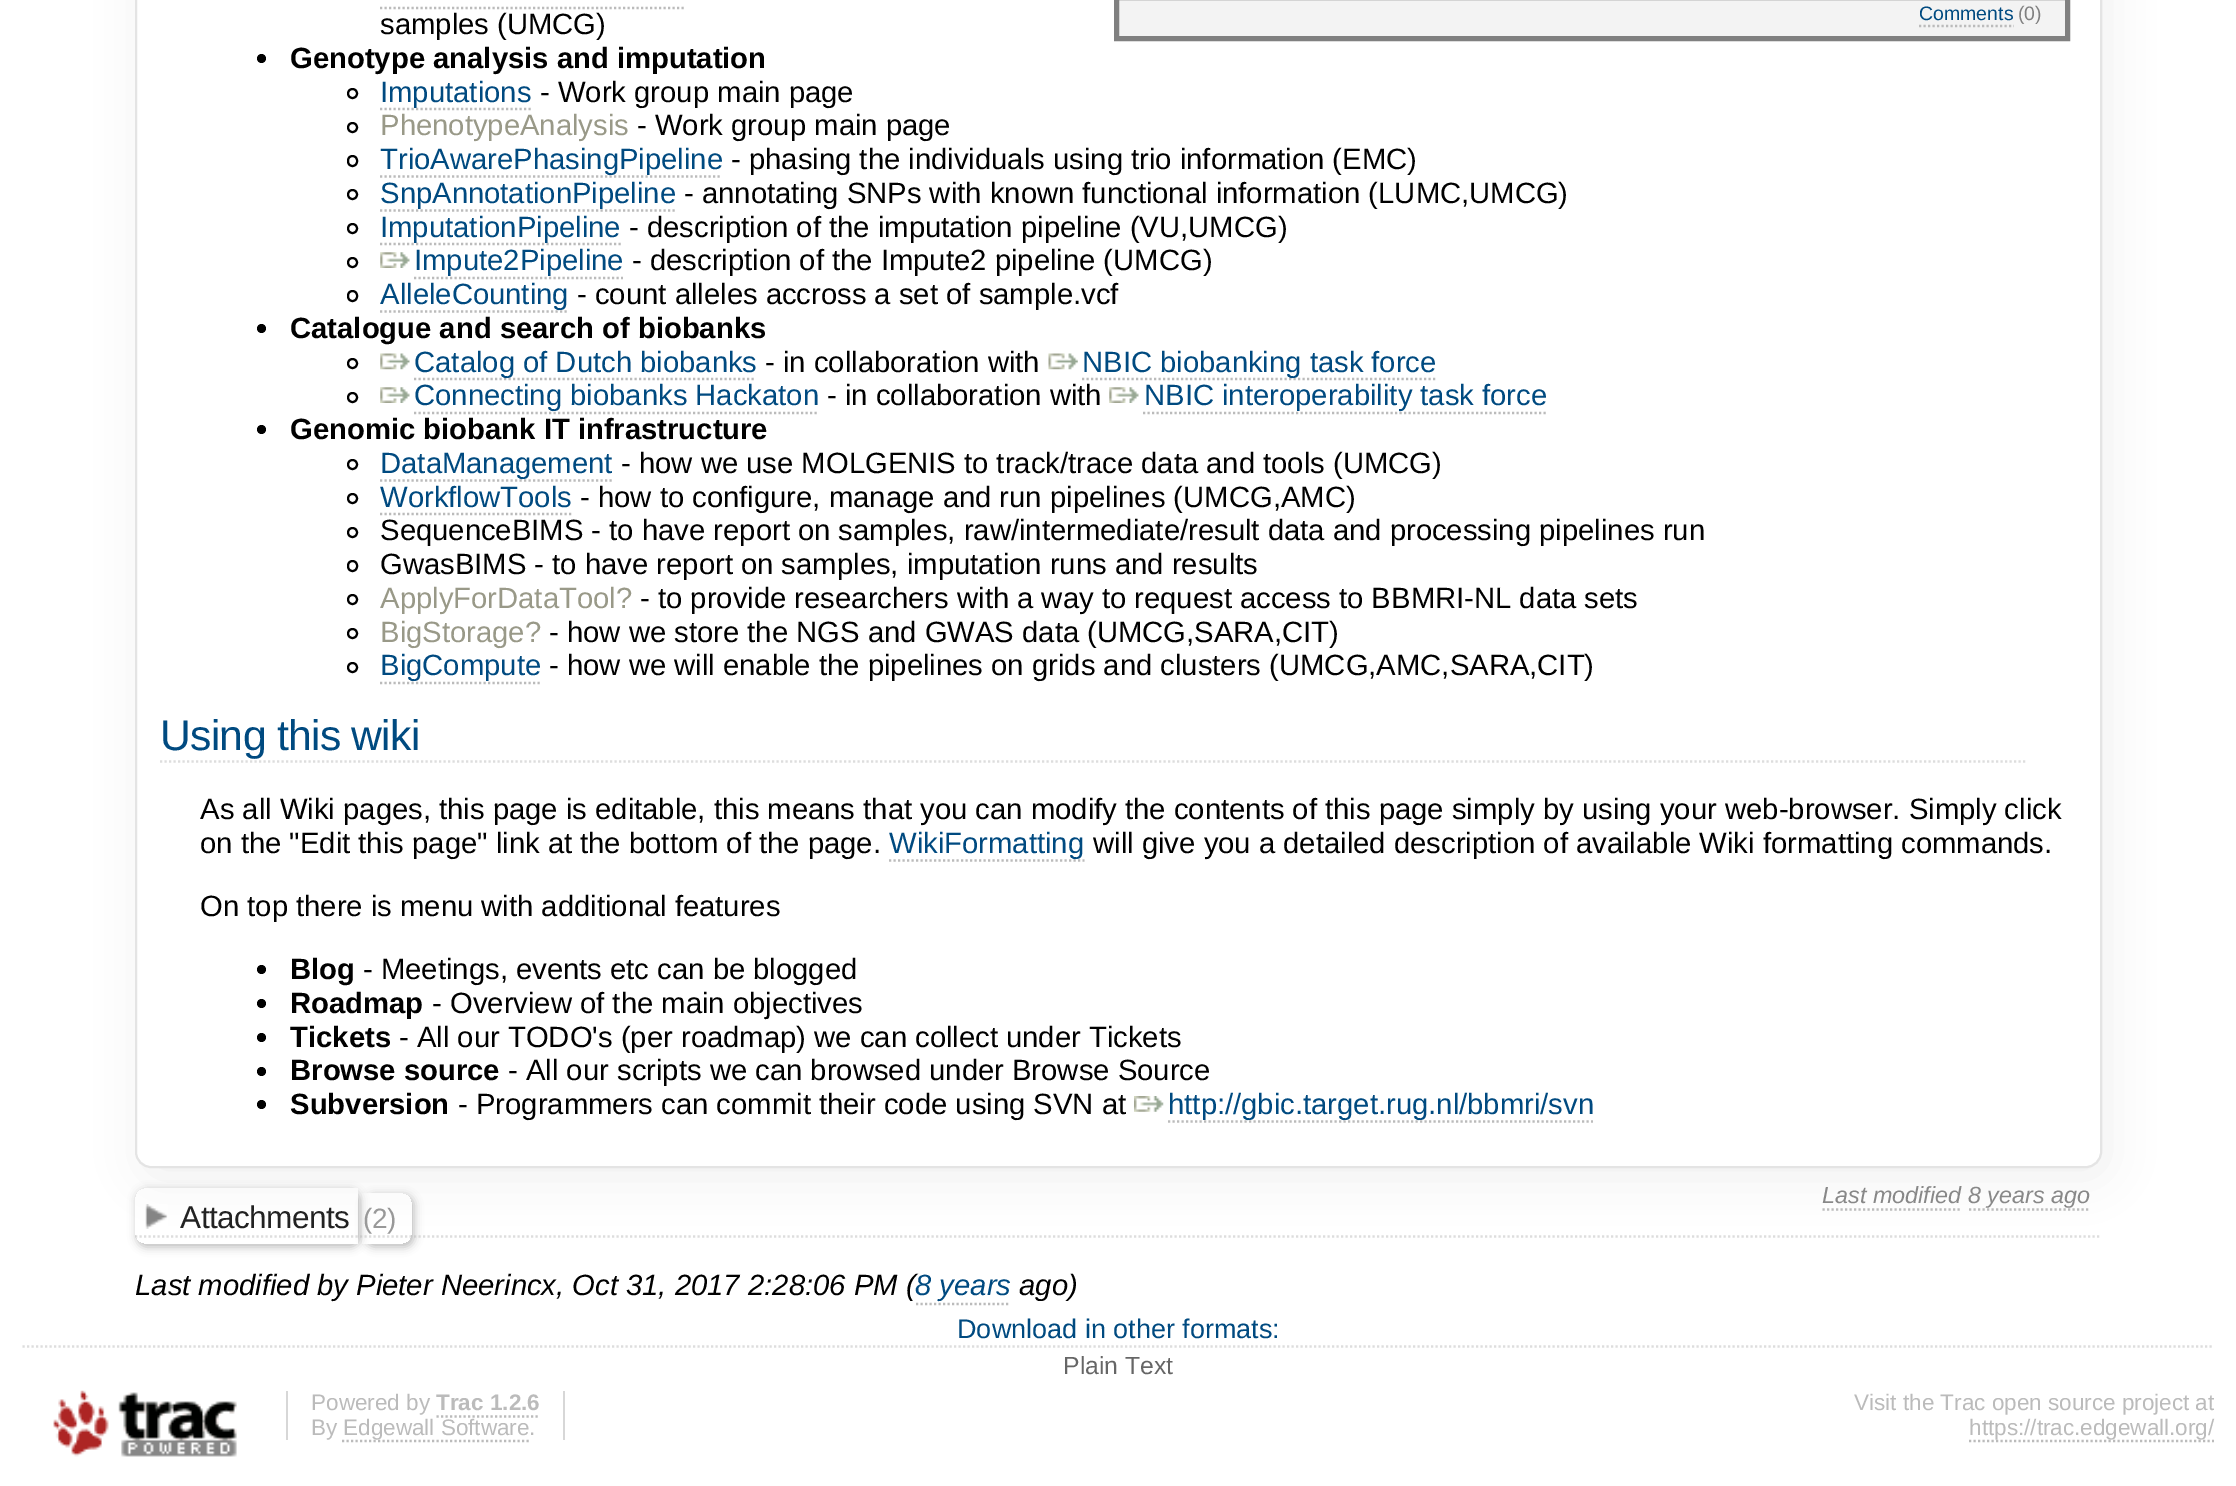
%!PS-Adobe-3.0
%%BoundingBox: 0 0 2236 1486
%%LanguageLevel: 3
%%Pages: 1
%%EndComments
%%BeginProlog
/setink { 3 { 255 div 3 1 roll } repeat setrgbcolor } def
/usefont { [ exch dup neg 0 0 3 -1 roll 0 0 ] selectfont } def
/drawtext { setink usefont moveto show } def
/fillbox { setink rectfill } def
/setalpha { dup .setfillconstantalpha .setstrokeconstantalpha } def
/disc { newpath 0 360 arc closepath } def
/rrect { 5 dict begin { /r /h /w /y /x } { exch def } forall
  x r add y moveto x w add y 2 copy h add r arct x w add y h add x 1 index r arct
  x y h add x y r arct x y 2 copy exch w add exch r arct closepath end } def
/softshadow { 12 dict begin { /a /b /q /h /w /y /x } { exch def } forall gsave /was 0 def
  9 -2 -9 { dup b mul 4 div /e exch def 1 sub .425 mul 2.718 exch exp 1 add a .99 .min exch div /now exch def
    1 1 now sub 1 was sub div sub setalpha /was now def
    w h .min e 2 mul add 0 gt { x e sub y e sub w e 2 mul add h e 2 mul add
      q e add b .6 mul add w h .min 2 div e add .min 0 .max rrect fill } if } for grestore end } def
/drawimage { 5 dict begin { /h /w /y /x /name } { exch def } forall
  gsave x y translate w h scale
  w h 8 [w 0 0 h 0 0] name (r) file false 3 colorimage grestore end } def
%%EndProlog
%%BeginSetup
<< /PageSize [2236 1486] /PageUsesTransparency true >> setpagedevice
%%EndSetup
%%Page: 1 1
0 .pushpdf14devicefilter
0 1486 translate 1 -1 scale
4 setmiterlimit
0 0 2236 1486 255 255 255 fillbox
gsave
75 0 moveto 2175 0 lineto 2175 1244 lineto 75 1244 lineto closepath 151 -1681 moveto 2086 -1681 lineto 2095 -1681 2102 -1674 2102 -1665 curveto 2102 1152 lineto 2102 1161 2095 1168 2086 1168 curveto 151 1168 lineto 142 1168 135 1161 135 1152 curveto 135 -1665 lineto 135 -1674 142 -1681 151 -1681 curveto closepath eoclip newpath
238 238 238 setink
142 -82 1966 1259 16 22 1 softshadow
grestore
228 228 228 setink
2 setlinewidth
136 -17 1965 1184 15 rrect stroke
187 187 187 setink
2.2 setlinewidth
[2.25 2.25] 0 setdash
380 8 moveto 686 8 lineto stroke
(samples \(UMCG\)) 380 34 /LiberationSans-Regular 29.25 0 0 0 drawtext
261.5 58.5 4.5 disc fill
(Genotype analysis and imputation) 290 68 /LiberationSans-Bold 29.25 0 0 0 drawtext
2 setlinewidth
[] 0 setdash
352.5 93.5 4.5 disc stroke
187 187 187 setink
2.2 setlinewidth
[2.25 2.25] 0 setdash
380 109 moveto 531 109 lineto stroke
(Imputations) 380 102 /LiberationSans-Regular 29.25 0 74 128 drawtext
(- Work group main page) 540 102 /LiberationSans-Regular 29.25 0 0 0 drawtext
2 setlinewidth
[] 0 setdash
352.5 127.5 4.5 disc stroke
(PhenotypeAnalysis) 380 135 /LiberationSans-Regular 29.25 153 153 136 drawtext
(- Work group main page) 637 135 /LiberationSans-Regular 29.25 0 0 0 drawtext
348 156 9 10 4.5 rrect stroke
187 187 187 setink
2.2 setlinewidth
[2.25 2.25] 0 setdash
380 176.5 moveto 722 176.5 lineto stroke
(TrioAwarePhasingPipeline) 380 169 /LiberationSans-Regular 29.25 0 74 128 drawtext
(- phasing the individuals using trio information \(EMC\)) 731 169 /LiberationSans-Regular 29.25 0 0 0 drawtext
2 setlinewidth
[] 0 setdash
352.5 194.5 4.5 disc stroke
187 187 187 setink
2.2 setlinewidth
[2.25 2.25] 0 setdash
380 210.5 moveto 677 210.5 lineto stroke
(SnpAnnotationPipeline) 380 203 /LiberationSans-Regular 29.25 0 74 128 drawtext
(- annotating SNPs with known functional information \(LUMC,UMCG\)) 684 203 /LiberationSans-Regular 29.25 0 0 0 drawtext
2 setlinewidth
[] 0 setdash
352.5 228.5 4.5 disc stroke
187 187 187 setink
2.2 setlinewidth
[2.25 2.25] 0 setdash
380 244 moveto 621 244 lineto stroke
(ImputationPipeline) 380 237 /LiberationSans-Regular 29.25 0 74 128 drawtext
(- description of the imputation pipeline \(VU,UMCG\)) 629 237 /LiberationSans-Regular 29.25 0 0 0 drawtext
2 setlinewidth
[] 0 setdash
352.5 262.5 4.5 disc stroke
(assets/img1.rgb) 380 252 30 16 drawimage
187 187 187 setink
2.2 setlinewidth
[2.25 2.25] 0 setdash
414 278 moveto 623 278 lineto stroke
(Impute2Pipeline) 414 270 /LiberationSans-Regular 29.25 0 74 128 drawtext
(- description of the Impute2 pipeline \(UMCG\)) 632 270 /LiberationSans-Regular 29.25 0 0 0 drawtext
2 setlinewidth
[] 0 setdash
348 291 9 10 4.5 rrect stroke
187 187 187 setink
2.2 setlinewidth
[2.25 2.25] 0 setdash
380 311.5 moveto 569 311.5 lineto stroke
(AlleleCounting) 380 304 /LiberationSans-Regular 29.25 0 74 128 drawtext
(- count alleles accross a set of sample.vcf) 577 304 /LiberationSans-Regular 29.25 0 0 0 drawtext
261.5 328.5 4.5 disc fill
(Catalogue and search of biobanks) 290 338 /LiberationSans-Bold 29.25 0 0 0 drawtext
2 setlinewidth
[] 0 setdash
352.5 363.5 4.5 disc stroke
(assets/img2.rgb) 380 353 30 17 drawimage
187 187 187 setink
2.2 setlinewidth
[2.25 2.25] 0 setdash
414 379 moveto 756 379 lineto stroke
(Catalog of Dutch biobanks) 414 372 /LiberationSans-Regular 29.25 0 74 128 drawtext
(- in collaboration with) 765 372 /LiberationSans-Regular 29.25 0 0 0 drawtext
(assets/img3.rgb) 1048 353 30 17 drawimage
187 187 187 setink
1082 379 moveto 1435.5 379 lineto stroke
(NBIC biobanking task force) 1082 372 /LiberationSans-Regular 29.25 0 74 128 drawtext
0 0 0 setink
2 setlinewidth
[] 0 setdash
352.5 397.5 4.5 disc stroke
(assets/img1.rgb) 380 387 30 16 drawimage
187 187 187 setink
2.2 setlinewidth
[2.25 2.25] 0 setdash
414 413 moveto 819 413 lineto stroke
(Connecting biobanks Hackaton) 414 405 /LiberationSans-Regular 29.25 0 74 128 drawtext
(- in collaboration with) 827 405 /LiberationSans-Regular 29.25 0 0 0 drawtext
(assets/img4.rgb) 1109 387 30 16 drawimage
187 187 187 setink
1143 413 moveto 1546 413 lineto stroke
(NBIC interoperability task force) 1144 405 /LiberationSans-Regular 29.25 0 74 128 drawtext
0 0 0 setink
261.5 429.5 4.5 disc fill
(Genomic biobank IT infrastructure) 290 439 /LiberationSans-Bold 29.25 0 0 0 drawtext
2 setlinewidth
[] 0 setdash
352.5 464.5 4.5 disc stroke
187 187 187 setink
2.2 setlinewidth
[2.25 2.25] 0 setdash
380 480.5 moveto 612 480.5 lineto stroke
(DataManagement) 380 473 /LiberationSans-Regular 29.25 0 74 128 drawtext
(- how we use MOLGENIS to track/trace data and tools \(UMCG\)) 621 473 /LiberationSans-Regular 29.25 0 0 0 drawtext
2 setlinewidth
[] 0 setdash
352.5 498.5 4.5 disc stroke
(WorkflowTools) 380 507 /LiberationSans-Regular 29.25 0 74 128 drawtext
187 187 187 setink
2.2 setlinewidth
[2.25 2.25] 0 setdash
380 514 moveto 571.5 514 lineto stroke
(- how to configure, manage and run pipelines \(UMCG,AMC\)) 580 507 /LiberationSans-Regular 29.25 0 0 0 drawtext
2 setlinewidth
[] 0 setdash
352.5 532.5 4.5 disc stroke
(SequenceBIMS - to have report on samples, raw/intermediate/result data and processing pipelines run) 380 540 /LiberationSans-Regular 29.25 0 0 0 drawtext
348 561 9 10 4.5 rrect stroke
(GwasBIMS - to have report on samples, imputation runs and results) 380 574 /LiberationSans-Regular 29.25 0 0 0 drawtext
352.5 599.5 4.5 disc stroke
(ApplyForDataTool?) 380 608 /LiberationSans-Regular 29.25 153 153 136 drawtext
(- to provide researchers with a way to request access to BBMRI-NL data sets) 640 608 /LiberationSans-Regular 29.25 0 0 0 drawtext
352.5 633.5 4.5 disc stroke
(BigStorage?) 380 642 /LiberationSans-Regular 29.25 153 153 136 drawtext
(- how we store the NGS and GWAS data \(UMCG,SARA,CIT\)) 549 642 /LiberationSans-Regular 29.25 0 0 0 drawtext
352.5 667.5 4.5 disc stroke
187 187 187 setink
2.2 setlinewidth
[2.25 2.25] 0 setdash
380 683 moveto 542 683 lineto stroke
(BigCompute) 380 675 /LiberationSans-Regular 29.25 0 74 128 drawtext
(- how we will enable the pipelines on grids and clusters \(UMCG,AMC,SARA,CIT\)) 549 675 /LiberationSans-Regular 29.25 0 0 0 drawtext
243 243 243 setink
1116.5 -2.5 moveto 2067.5 -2.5 lineto 2067.5 38.5 lineto 1116.5 38.5 lineto closepath gsave fill grestore
128 128 128 setink
5 setlinewidth
[] 0 setdash
stroke
(Comments) 1919 20 /LiberationSans-Regular 19.5 0 74 128 drawtext
187 187 187 setink
2.2 setlinewidth
[2.25 2.25] 0 setdash
1919 26 moveto 2014 26 lineto stroke
(\(0\)) 2018 20 /LiberationSans-Regular 19.5 128 128 128 drawtext
221 221 221 setink
160 761.5 moveto 2027 761.5 lineto stroke
/LiberationSans-Regular 42.75 usefont
0 74 128 setink
160 750 moveto -0.75 0 (Using this wiki) ashow
(As all Wiki pages, this page is editable, this means that you can modify the contents of this page simply by using your web-browser. Simply click) 200 819 /LiberationSans-Regular 29.25 0 0 0 drawtext
(on the "Edit this page" link at the bottom of the page.) 200 853 /LiberationSans-Regular 29.25 0 0 0 drawtext
187 187 187 setink
889 860.5 moveto 1084.5 860.5 lineto stroke
(WikiFormatting) 889 853 /LiberationSans-Regular 29.25 0 74 128 drawtext
(will give you a detailed description of available Wiki formatting commands.) 1093 853 /LiberationSans-Regular 29.25 0 0 0 drawtext
(On top there is menu with additional features) 200 916 /LiberationSans-Regular 29.25 0 0 0 drawtext
261.5 969.5 4.5 disc fill
(Blog) 290 979 /LiberationSans-Bold 29.25 0 0 0 drawtext
(- Meetings, events etc can be blogged) 363 979 /LiberationSans-Regular 29.25 0 0 0 drawtext
261.5 1003.5 4.5 disc fill
(Roadmap) 290 1013 /LiberationSans-Bold 29.25 0 0 0 drawtext
(- Overview of the main objectives) 432 1013 /LiberationSans-Regular 29.25 0 0 0 drawtext
261.5 1037.5 4.5 disc fill
(Tickets) 290 1047 /LiberationSans-Bold 29.25 0 0 0 drawtext
(- All our TODO's \(per roadmap\) we can collect under Tickets) 399 1047 /LiberationSans-Regular 29.25 0 0 0 drawtext
261.5 1071.5 4.5 disc fill
(Browse source) 290 1080 /LiberationSans-Bold 29.25 0 0 0 drawtext
(- All our scripts we can browsed under Browse Source) 508 1080 /LiberationSans-Regular 29.25 0 0 0 drawtext
261.5 1104.5 4.5 disc fill
(Subversion) 290 1114 /LiberationSans-Bold 29.25 0 0 0 drawtext
(- Programmers can commit their code using SVN at) 458 1114 /LiberationSans-Regular 29.25 0 0 0 drawtext
(assets/img5.rgb) 1134 1096 30 16 drawimage
187 187 187 setink
1168 1121.5 moveto 1593 1121.5 lineto stroke
(http://gbic.target.rug.nl/bbmri/svn) 1168 1114 /LiberationSans-Regular 29.25 0 74 128 drawtext
(Last modified 8 years ago) 1822 1203 /LiberationSans-Italic 23.4 136 136 136 drawtext
187 187 187 setink
1822.5 1209.5 moveto 1962 1209.5 lineto stroke
1969 1209.5 moveto 2090 1209.5 lineto stroke
221 221 221 setink
135 1236.5 moveto 2101.5 1236.5 lineto stroke
gsave
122 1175 moveto 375 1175 lineto 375 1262 lineto 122 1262 lineto closepath 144 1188 moveto 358 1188 lineto 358 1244 lineto 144 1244 lineto 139 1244 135 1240 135 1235 curveto 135 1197 lineto 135 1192 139 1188 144 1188 curveto closepath eoclip newpath
187 187 187 setink
137 1190 223 57 9 4.5 1 softshadow
grestore
(assets/img6.rgb) 145 1204 23 25 drawimage
/LiberationSans-Regular 31.5 usefont
34 34 34 setink
180 1228 moveto -0.5 0 (Attachments) ashow
gsave
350 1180 moveto 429 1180 lineto 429 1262 lineto 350 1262 lineto closepath 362 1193 moveto 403 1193 lineto 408 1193 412 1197 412 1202 curveto 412 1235 lineto 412 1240 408 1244 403 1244 curveto 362 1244 lineto closepath eoclip newpath
187 187 187 setink
365 1195 49 52 9 4.5 1 softshadow
grestore
/LiberationSans-Regular 28 usefont
153 153 153 setink
363 1228 moveto -0.5 0 (\(2\)) ashow
(Last modified by Pieter Neerincx, Oct 31, 2017 2:28:06 PM \() 135 1295 /LiberationSans-Italic 29.25 0 0 0 drawtext
(8 years) 915 1295 /LiberationSans-Italic 29.25 0 74 128 drawtext
187 187 187 setink
916 1304 moveto 1010 1304 lineto stroke
(ago\)) 1019 1295 /LiberationSans-Italic 29.25 0 0 0 drawtext
221 221 221 setink
22.5 1346.5 moveto 2214 1346.5 lineto stroke
(Download in other formats:) 957 1338 /LiberationSans-Regular 27 0 74 128 drawtext
(Plain Text) 1063 1374 /LiberationSans-Regular 24.75 102 102 102 drawtext
(assets/img7.rgb) 53 1390 184 67 drawimage
563 1391 2 49 215 215 215 fillbox
286 1391 2 49 215 215 215 fillbox
(Powered by) 311 1410 /LiberationSans-Regular 22.5 187 187 187 drawtext
(Trac 1.2.6) 436 1410 /LiberationSans-Bold 22.5 187 187 187 drawtext
436.5 1416.5 moveto 540 1416.5 lineto stroke
(By) 311 1435 /LiberationSans-Regular 22.5 187 187 187 drawtext
342 1441 moveto 529 1441 lineto stroke
(Edgewall Software.) 343 1435 /LiberationSans-Regular 22.5 187 187 187 drawtext
(Visit the Trac open source project at) 1854 1410 /LiberationSans-Regular 22.5 187 187 187 drawtext
1969 1441 moveto 2214 1441 lineto stroke
(https://trac.edgewall.org/) 1969 1435 /LiberationSans-Regular 22.5 187 187 187 drawtext
.poppdf14devicefilter showpage
%%EOF
